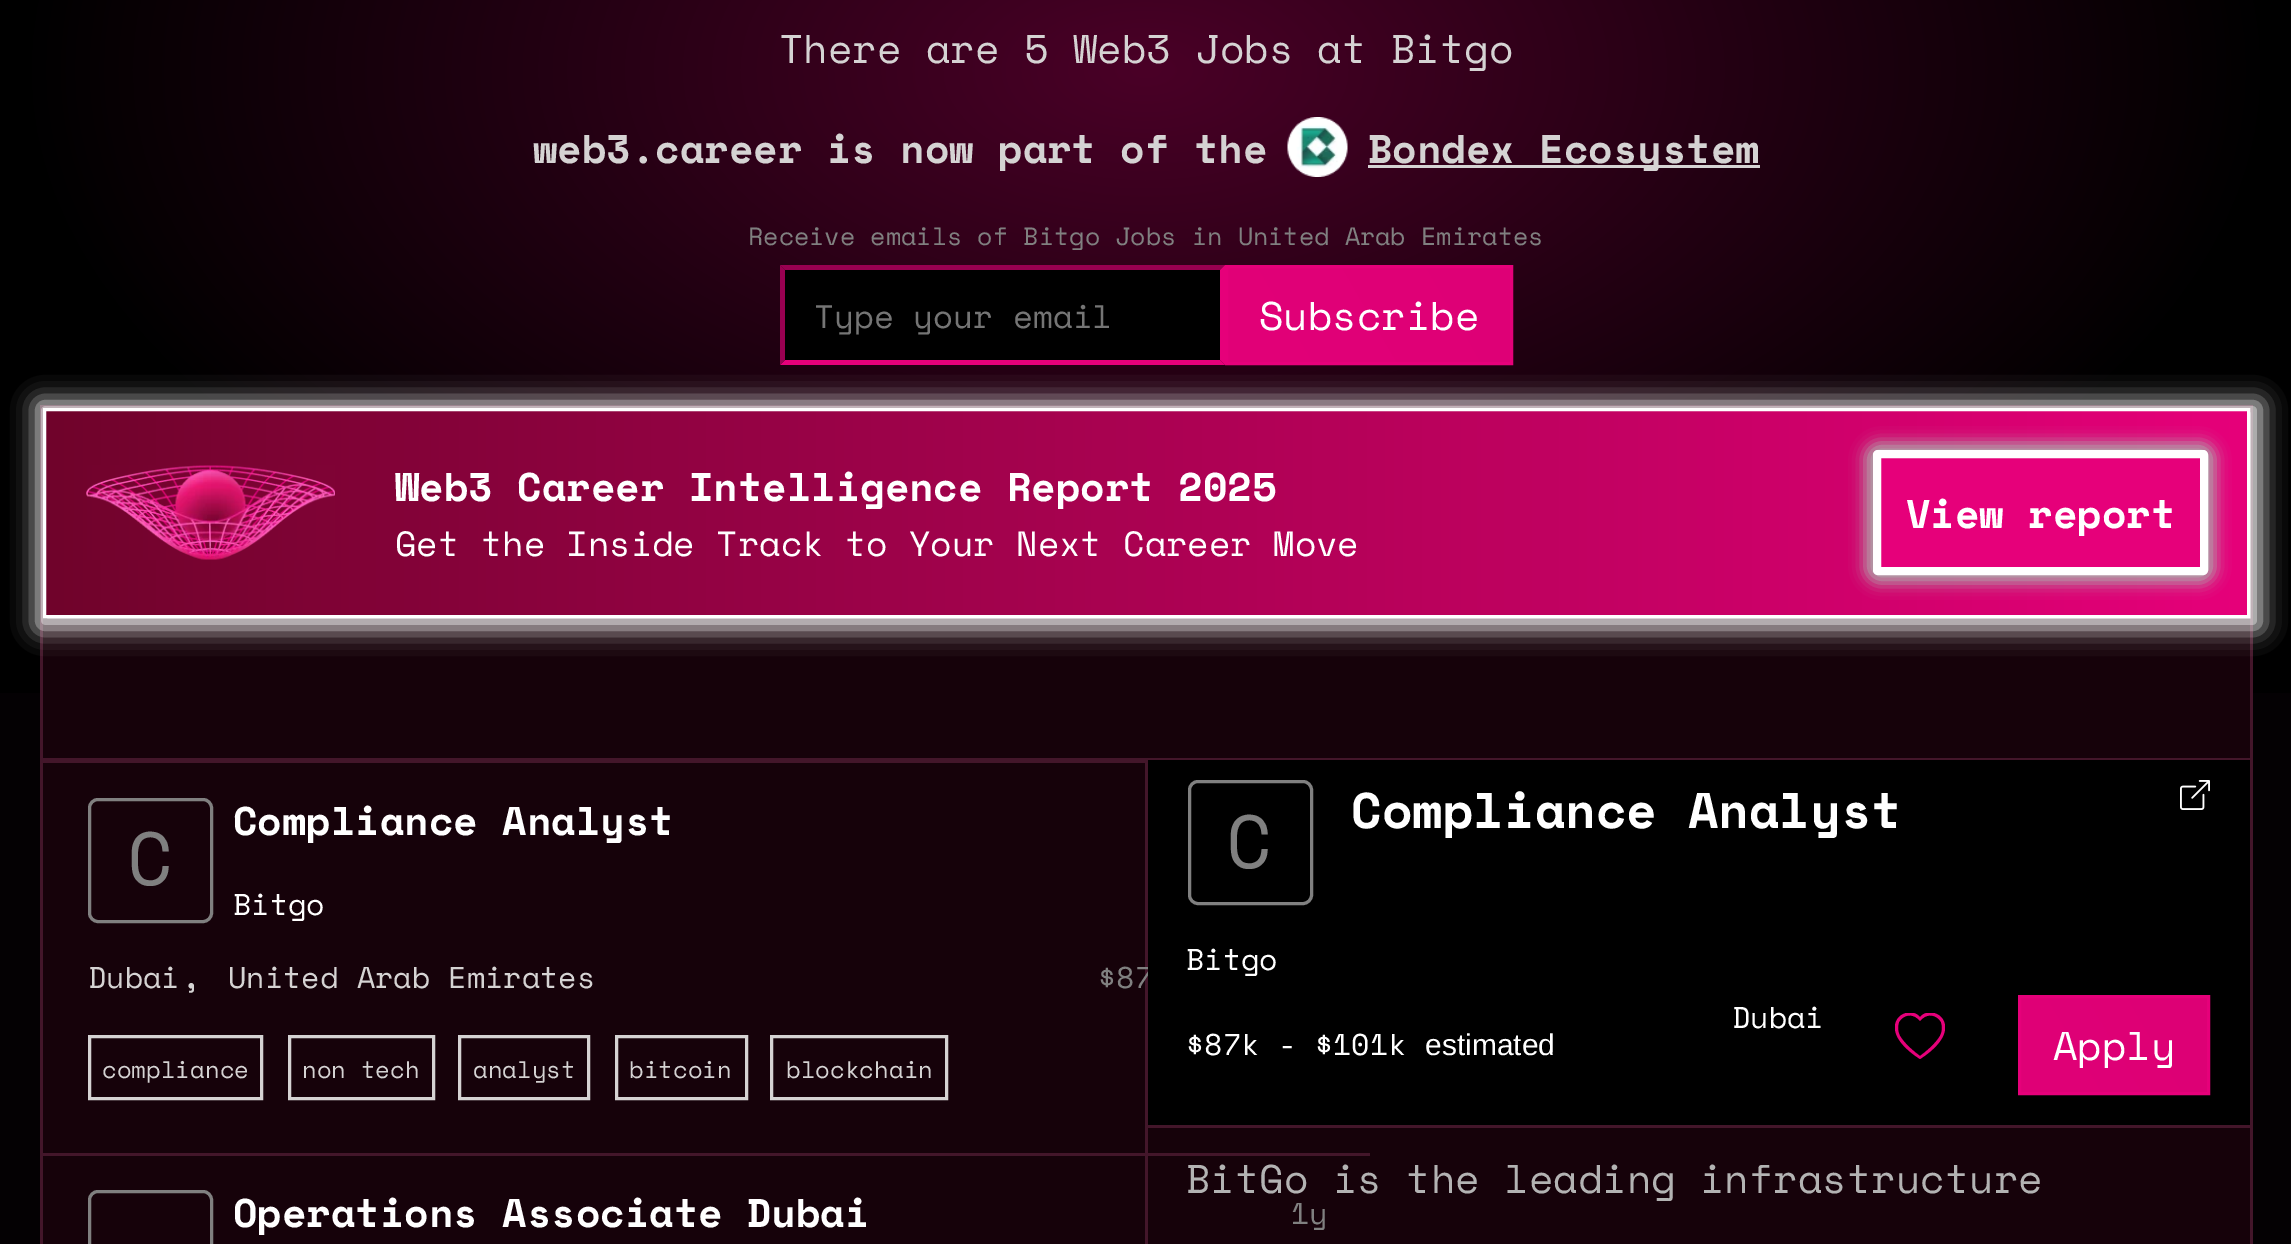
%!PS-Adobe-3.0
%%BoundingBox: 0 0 2291 1244
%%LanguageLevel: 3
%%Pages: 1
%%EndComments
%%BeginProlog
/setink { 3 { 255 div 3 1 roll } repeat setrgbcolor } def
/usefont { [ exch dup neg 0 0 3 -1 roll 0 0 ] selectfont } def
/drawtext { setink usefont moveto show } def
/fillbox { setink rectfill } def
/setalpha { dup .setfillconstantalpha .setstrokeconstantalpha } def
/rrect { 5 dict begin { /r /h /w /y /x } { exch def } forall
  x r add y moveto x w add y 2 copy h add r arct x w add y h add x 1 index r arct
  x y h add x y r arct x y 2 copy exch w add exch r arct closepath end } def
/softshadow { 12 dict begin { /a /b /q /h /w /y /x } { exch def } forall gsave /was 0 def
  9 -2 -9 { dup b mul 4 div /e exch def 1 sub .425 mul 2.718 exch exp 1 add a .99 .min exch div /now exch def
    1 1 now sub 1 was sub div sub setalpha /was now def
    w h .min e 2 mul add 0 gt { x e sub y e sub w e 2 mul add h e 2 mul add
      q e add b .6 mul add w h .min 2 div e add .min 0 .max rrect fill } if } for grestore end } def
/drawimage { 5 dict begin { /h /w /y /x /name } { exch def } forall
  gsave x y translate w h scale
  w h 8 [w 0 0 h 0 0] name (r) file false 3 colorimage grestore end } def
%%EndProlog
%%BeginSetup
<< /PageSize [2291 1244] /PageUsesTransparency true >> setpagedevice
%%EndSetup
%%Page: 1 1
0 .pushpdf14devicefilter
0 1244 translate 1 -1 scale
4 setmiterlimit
0 0 2291 1244 4 1 3 fillbox
gsave 0 0 moveto 2291 0 lineto 2291 693 lineto 0 693 lineto closepath clip newpath 1146 70 translate 1621 880 scale
<< /ShadingType 3 /ColorSpace /DeviceRGB /Coords [0 0 0 0 0 1] /Extend [true true] /Function << /FunctionType 3 /Domain [0 1] /Functions [<< /FunctionType 2 /Domain [0 1] /C0 [0.29 0 0.153] /C1 [0 0 0] /N 1 >> << /FunctionType 2 /Domain [0 1] /C0 [0 0 0] /C1 [0 0 0] /N 1 >>] /Bounds [0.7] /Encode [0 1 0 1] >> >> shfill grestore
(There are 5 Web3 Jobs at Bitgo) 779 63 /SpaceMono-Regular 40 213 211 211 drawtext
(web3.career is now part of the) 533 163 /SpaceMono-Bold 40 213 211 211 drawtext
(assets/img1.rgb) 1287 117 61 60 drawimage
1368 165 392 3 213 211 211 fillbox
(Bondex Ecosystem) 1368 163 /SpaceMono-Bold 40 213 211 211 drawtext
(Receive emails of Bitgo Jobs in United Arab Emirates) 748 245 /SpaceMono-Regular 25 128 128 128 drawtext
40 405 2213 5 67 22 42 fillbox
43 618 2207 626 22 2 10 fillbox
2250 410 3 834 67 22 42 fillbox
40 410 3 834 67 22 42 fillbox
249 249 249 setink
38 403 2222 225 0 12.5 1 softshadow
780 265 445 100 0 0 0 fillbox
153 0 81 setink
780 265 moveto 1225 265 lineto 1220 270 lineto 785 270 lineto closepath fill
230 0 122 setink
1225 265 moveto 1225 365 lineto 1220 360 lineto 1220 270 lineto closepath fill
1225 365 moveto 780 365 lineto 785 360 lineto 1220 360 lineto closepath fill
153 0 81 setink
780 365 moveto 780 265 lineto 785 270 lineto 785 360 lineto closepath fill
(Type your email) 814 328 /SpaceMono-Regular 32.5 117 117 117 drawtext
gsave 1228 268 moveto 1510 268 lineto 1510 362 lineto 1228 362 lineto closepath clip newpath
<< /ShadingType 2 /ColorSpace /DeviceRGB /Coords [1360 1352 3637 38] /Extend [true true] /Function << /FunctionType 3 /Domain [0 1] /Functions [<< /FunctionType 2 /Domain [0 1] /C0 [0.902 0 0.478] /C1 [0.843 0 0.447] /N 1 >> << /FunctionType 2 /Domain [0 1] /C0 [0.843 0 0.447] /C1 [1 0.004 0.529] /N 1 >>] /Bounds [0.5] /Encode [0 1 0 1] >> >> shfill grestore
230 0 122 setink
3 setlinewidth
1226.5 266.5 285 97 rectstroke
(Subscribe) 1259 330 /SpaceMono-Regular 40 255 255 255 drawtext
gsave 46 411 moveto 2247 411 lineto 2247 615 lineto 46 615 lineto closepath clip newpath
<< /ShadingType 2 /ColorSpace /DeviceRGB /Coords [2248 513 45 512] /Extend [true true] /Function << /FunctionType 2 /Domain [0 1] /C0 [0.902 0 0.478] /C1 [0.439 0.012 0.169] /N 1 >> >> shfill grestore
44.5 409.5 2204 207 rectstroke
(assets/img2.rgb) 86 465 249 95 drawimage
(Web3 Career Intelligence Report 2025) 395 501 /SpaceMono-Bold 40 255 255 255 drawtext
(Get the Inside Track to Your Next Career Move) 395 556 /SpaceMono-Regular 35 255 255 255 drawtext
173 173 173 setink
1865 443 350 140 13 7.5 1 softshadow
230 0 122 setink
1877 454 327 117 1 rrect gsave fill grestore
255 255 255 setink
8 setlinewidth
stroke
(View report) 1906 528 /SpaceMono-Bold 40 255 255 255 drawtext
43 758 2207 2 67 22 42 fillbox
1145 760 3 484 67 22 42 fillbox
43 760 1105 3 67 22 42 fillbox
(Compliance Analyst) 233 835 /SpaceMono-Bold 40 255 255 255 drawtext
128 128 128 setink
3 setlinewidth
89.5 799.5 122 122 8.5 rrect stroke
(C) 127 885 /SpaceMono-Regular 75 128 128 128 drawtext
(Bitgo) 233 915 /SpaceMono-Regular 30 255 255 255 drawtext
(Dubai) 88 988 /SpaceMono-Regular 30 213 211 211 drawtext
(,) 179 988 /SpaceMono-Regular 40 213 211 211 drawtext
(United Arab Emirates) 228 988 /SpaceMono-Regular 30 213 211 211 drawtext
($87) 1098 988 /SpaceMono-Regular 30 128 128 128 drawtext
213 211 211 setink
89.5 1036.5 172 62 rectstroke
(compliance) 102 1078 /SpaceMono-Regular 24 213 211 211 drawtext
289.5 1036.5 144 62 rectstroke
(non tech) 302 1078 /SpaceMono-Regular 24 213 211 211 drawtext
459.5 1036.5 129 62 rectstroke
(analyst) 473 1078 /SpaceMono-Regular 24 213 211 211 drawtext
616.5 1036.5 130 62 rectstroke
(bitcoin) 629 1078 /SpaceMono-Regular 24 213 211 211 drawtext
771.5 1036.5 175 62 rectstroke
(blockchain) 786 1078 /SpaceMono-Regular 24 213 211 211 drawtext
43 1153 1327 3 67 22 42 fillbox
128 128 128 setink
89.5 1191.5 122 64 8.5 rrect stroke
(Operations Associate Dubai) 233 1227 /SpaceMono-Bold 40 255 255 255 drawtext
(1y) 1291 1224 /SpaceMono-Regular 30 128 128 128 drawtext
1148 760 1102 365 0 0 0 fillbox
1148 1125 1102 3 67 22 42 fillbox
128 128 128 setink
1189.5 781.5 122 122 8.5 rrect stroke
(C) 1226 868 /SpaceMono-Regular 75 128 128 128 drawtext
(Compliance Analyst) 1351 828 /SpaceMono-Bold 50 255 255 255 drawtext
(assets/img3.rgb) 2180 780 30 30 drawimage
(Bitgo) 1186 970 /SpaceMono-Regular 30 255 255 255 drawtext
($87k - $101k) 1186 1055 /SpaceMono-Regular 30 255 255 255 drawtext
(estimated) 1425 1055 /LiberationSans-Regular 30 255 255 255 drawtext
(Dubai) 1732 1028 /SpaceMono-Regular 30 255 255 255 drawtext
gsave
1895 1013 50 50 rectclip
230 0 122 setink
1920 1021 moveto 1918 1019 lineto 1912 1013 1903 1015 1899 1022 curveto 1898 1025 1897 1030 1900 1036 curveto 1903 1041 1909 1048 1920 1056 curveto 1931 1048 1937 1041 1940 1036 curveto 1943 1030 1942 1025 1941 1022 curveto 1937 1015 1928 1013 1922 1019 curveto closepath 1920 1059 moveto 1872 1028 1905 1003 1919 1016 curveto 1920 1017 lineto 1921 1016 lineto 1935 1003 1968 1028 1920 1059 curveto closepath fill
grestore
gsave 2021 998 moveto 2207 998 lineto 2207 1092 lineto 2021 1092 lineto closepath clip newpath
<< /ShadingType 2 /ColorSpace /DeviceRGB /Coords [2046 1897 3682 953] /Extend [true true] /Function << /FunctionType 3 /Domain [0 1] /Functions [<< /FunctionType 2 /Domain [0 1] /C0 [0.902 0 0.478] /C1 [0.843 0 0.447] /N 1 >> << /FunctionType 2 /Domain [0 1] /C0 [0.843 0 0.447] /C1 [1 0.004 0.529] /N 1 >>] /Bounds [0.5] /Encode [0 1 0 1] >> >> shfill grestore
230 0 122 setink
2019.5 996.5 189 97 rectstroke
(Apply) 2053 1060 /SpaceMono-Regular 40 255 255 255 drawtext
(BitGo is the leading infrastructure) 1186 1193 /SpaceMono-Regular 40 179 179 179 drawtext
.poppdf14devicefilter showpage
%%EOF
